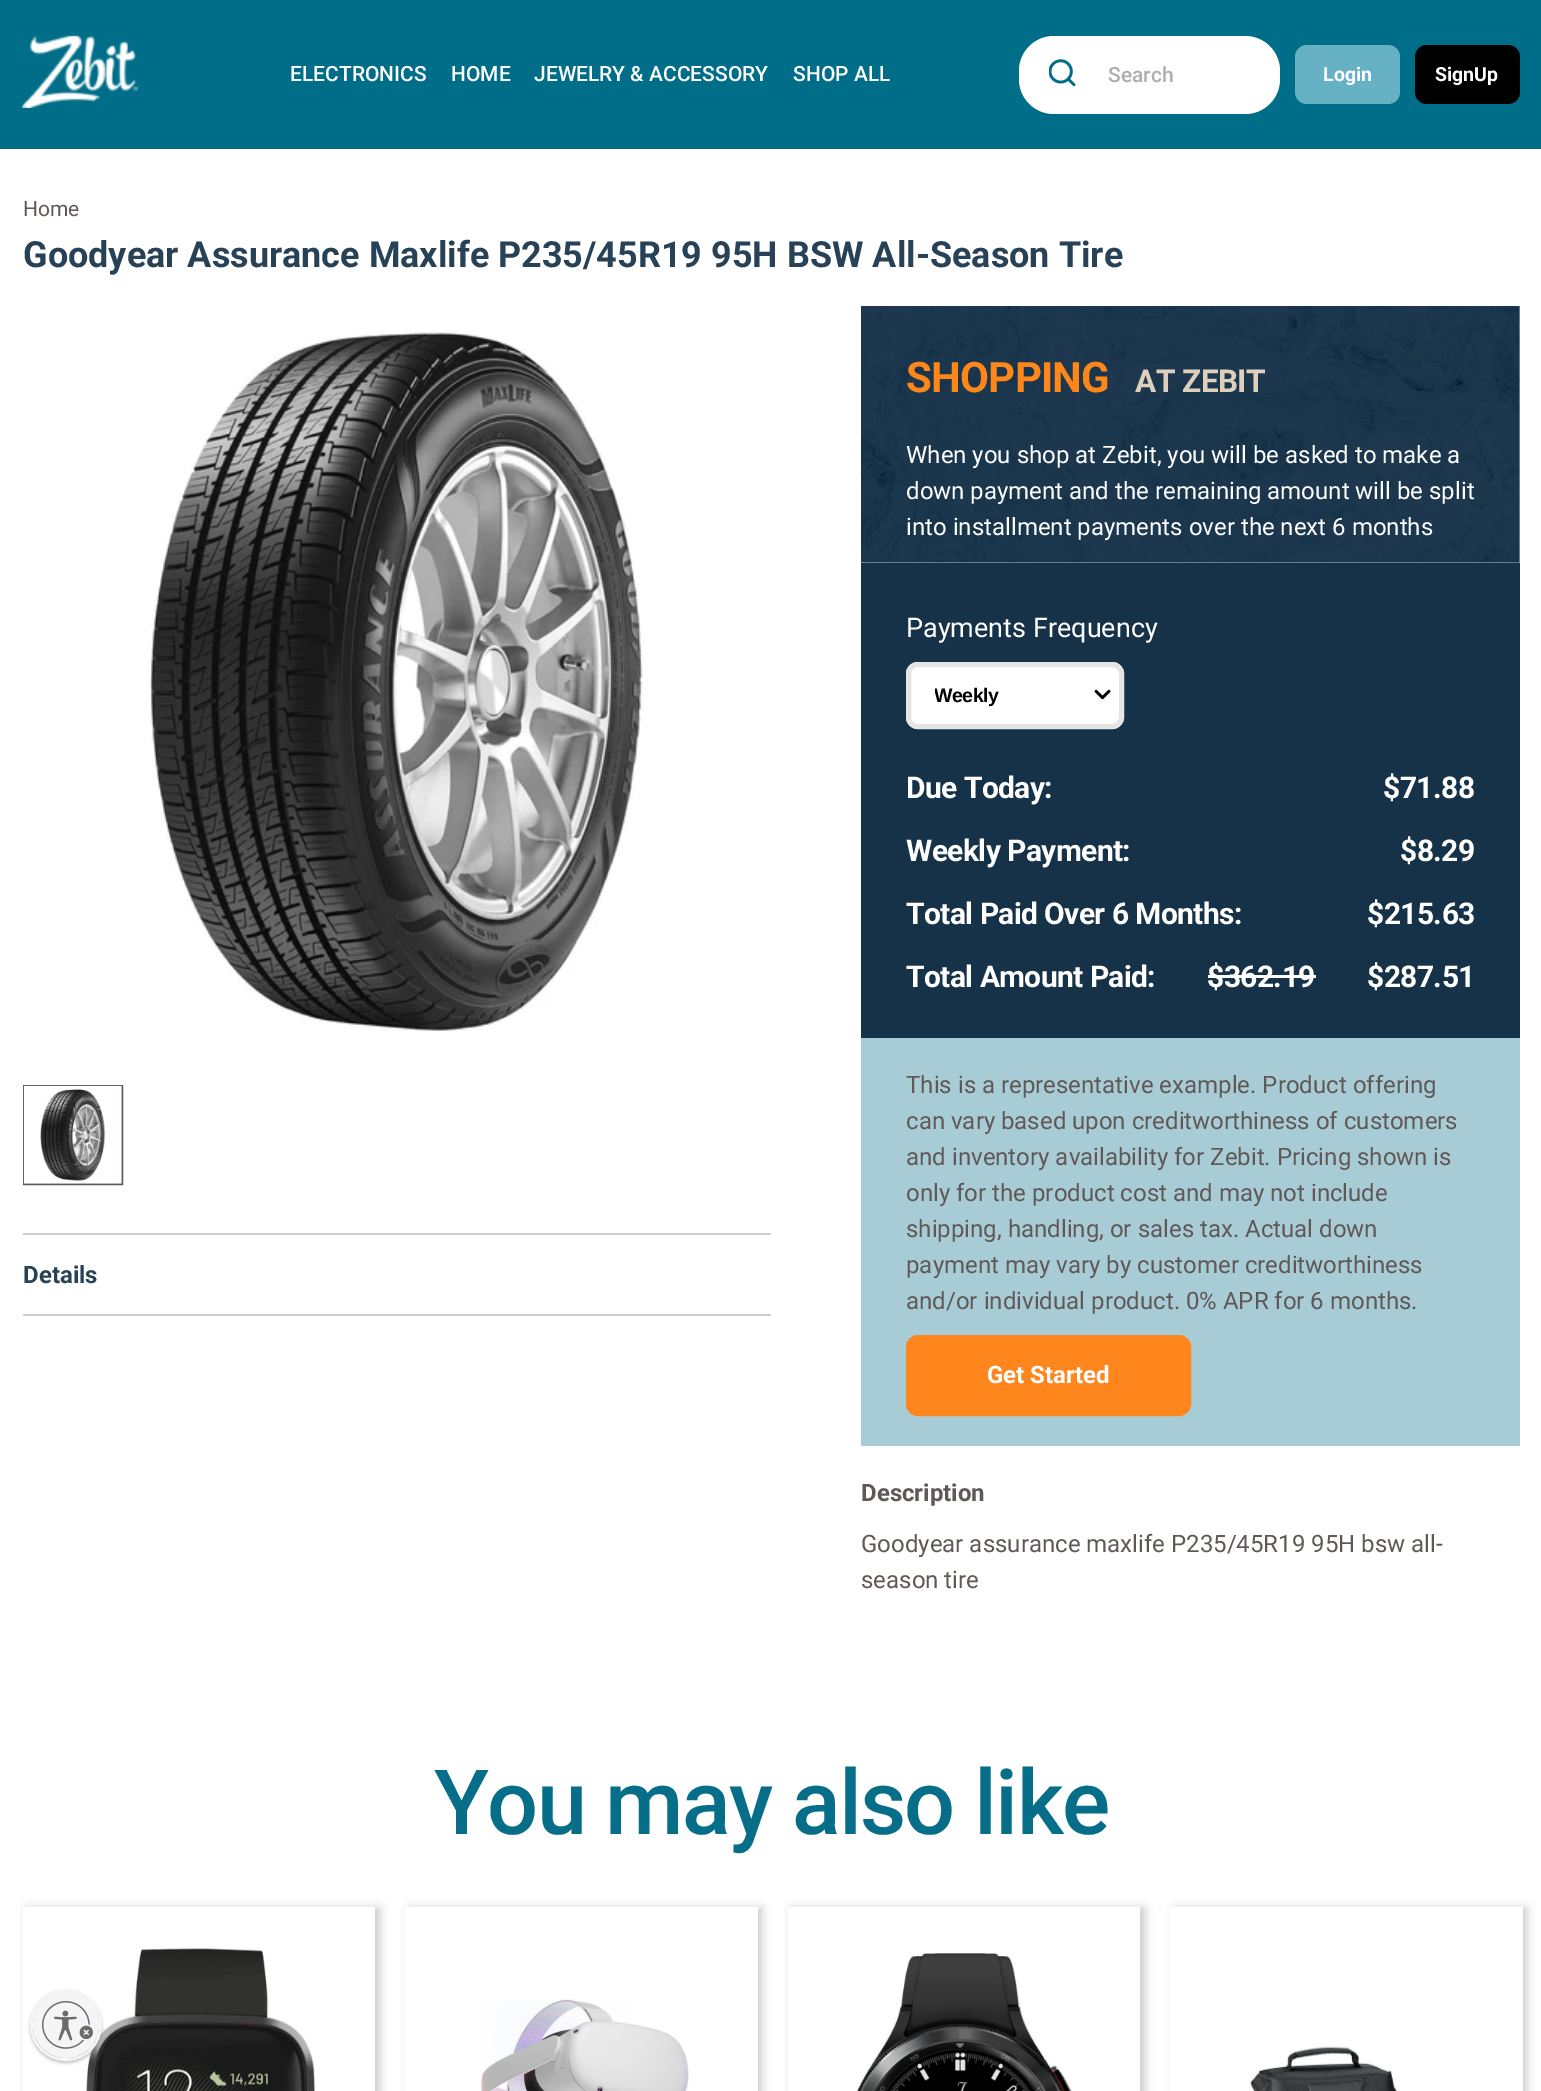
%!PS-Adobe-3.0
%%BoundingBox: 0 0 1541 2091
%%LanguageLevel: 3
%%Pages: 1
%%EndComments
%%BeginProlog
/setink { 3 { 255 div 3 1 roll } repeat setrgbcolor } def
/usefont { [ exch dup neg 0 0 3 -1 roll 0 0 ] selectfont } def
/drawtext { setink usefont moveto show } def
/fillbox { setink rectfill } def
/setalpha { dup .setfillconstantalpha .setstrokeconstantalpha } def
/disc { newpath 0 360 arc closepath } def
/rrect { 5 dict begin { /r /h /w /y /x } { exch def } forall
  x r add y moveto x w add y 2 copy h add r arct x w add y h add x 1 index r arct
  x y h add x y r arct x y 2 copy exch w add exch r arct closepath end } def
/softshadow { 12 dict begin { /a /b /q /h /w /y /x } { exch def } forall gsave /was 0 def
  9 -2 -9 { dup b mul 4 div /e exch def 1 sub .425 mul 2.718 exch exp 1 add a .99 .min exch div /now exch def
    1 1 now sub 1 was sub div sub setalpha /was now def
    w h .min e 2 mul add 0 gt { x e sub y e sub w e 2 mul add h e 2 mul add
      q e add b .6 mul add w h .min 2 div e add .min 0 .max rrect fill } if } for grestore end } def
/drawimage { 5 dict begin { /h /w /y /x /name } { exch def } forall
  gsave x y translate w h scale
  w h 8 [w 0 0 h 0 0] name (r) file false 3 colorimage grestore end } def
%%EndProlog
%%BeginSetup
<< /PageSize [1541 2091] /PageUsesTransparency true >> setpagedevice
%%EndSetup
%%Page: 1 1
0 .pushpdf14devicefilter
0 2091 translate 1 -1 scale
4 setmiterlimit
0 0 1541 2091 255 255 255 fillbox
0 0 1541 149 0 110 136 fillbox
(assets/img1.rgb) 22 35 116 73 drawimage
(ELECTRONICS) 290 81 /Roboto-Medium 21 255 255 255 drawtext
(HOME) 451 81 /Roboto-Medium 21 255 255 255 drawtext
(JEWELRY & ACCESSORY) 534 81 /Roboto-Medium 21 255 255 255 drawtext
(SHOP ALL) 793 81 /Roboto-Medium 21 255 255 255 drawtext
1019 36 261 78 35 rrect fill
(assets/img2.rgb) 1049 59 27 27 drawimage
(Search) 1108 82 /Roboto-Medium 21 176 172 171 drawtext
102 177 195 setink
1295 45 105 59 12 rrect fill
(Login) 1323 81 /Roboto-Bold 19.5 255 255 255 drawtext
0 0 0 setink
1415 45 105 59 12 rrect fill
(SignUp) 1435 81 /Roboto-Bold 19.5 255 255 255 drawtext
(Home) 23 216 /Roboto-Regular 21 96 88 86 drawtext
(Goodyear Assurance Maxlife P235/45R19 95H BSW All-Season Tire) 23 267 /Roboto-Bold 36 39 65 86 drawtext
(assets/img3.rgb) 149 330 496 701 drawimage
96 88 86 setink
2 setlinewidth
24 1086 98 98 rectstroke
(assets/img4.rgb) 23 1085 99 99 drawimage
23 1233 748 2 207 205 204 fillbox
23 1314 748 2 207 205 204 fillbox
(Details) 23 1283 /Roboto-Bold 24 39 65 86 drawtext
861 306 659 1140 168 204 213 fillbox
(assets/img5.rgb) 861 306 659 257 drawimage
/Roboto-Bold 42 usefont
255 134 24 setink
906 392 moveto -0.75 0 (SHOPPING) ashow
/Roboto-Bold 31.5 usefont
223 208 189 setink
1135 392 moveto -0.5 0 (AT ZEBIT) ashow
(When you shop at Zebit, you will be asked to make a) 906 463 /Roboto-Regular 24 255 255 255 drawtext
(down payment and the remaining amount will be split) 906 499 /Roboto-Regular 24 255 255 255 drawtext
(into installment payments over the next 6 months) 906 535 /Roboto-Regular 24 255 255 255 drawtext
861 563 659 475 22 50 72 fillbox
(Payments Frequency) 906 637 /Roboto-Regular 27 255 255 255 drawtext
906 662 218 67 12 rrect fill
(assets/img6.rgb) 1094 689 17 11 drawimage
229 229 229 setink
5 setlinewidth
908.5 664.5 213 62 9.5 rrect stroke
gsave
935 684 148 23 rectclip
/LiberationSans-Bold 19.5 usefont
0 0 0 setink
934 702 moveto -0.5 0 (Weekly) ashow
grestore
/Roboto-Bold 30 usefont
255 255 255 setink
906 798 moveto -0.6 0 (Due Today:) ashow
1383 798 moveto -0.6 0 ($71.88) ashow
906 861 moveto -0.6 0 (Weekly Payment:) ashow
1400 861 moveto -0.6 0 ($8.29) ashow
906 924 moveto -0.6 0 (Total Paid Over 6 Months:) ashow
1367 924 moveto -0.6 0 ($215.63) ashow
906 987 moveto -0.6 0 (Total Amount Paid:) ashow
1207 987 moveto -0.6 0 ($362.19) ashow
1208 975 108 3 255 255 255 fillbox
1367 987 moveto -0.6 0 ($287.51) ashow
(This is a representative example. Product offering) 906 1093 /Roboto-Regular 24 96 88 86 drawtext
(can vary based upon creditworthiness of customers) 906 1129 /Roboto-Regular 24 96 88 86 drawtext
(and inventory availability for Zebit. Pricing shown is) 906 1165 /Roboto-Regular 24 96 88 86 drawtext
(only for the product cost and may not include) 906 1201 /Roboto-Regular 24 96 88 86 drawtext
(shipping, handling, or sales tax. Actual down) 906 1237 /Roboto-Regular 24 96 88 86 drawtext
(payment may vary by customer creditworthiness) 906 1273 /Roboto-Regular 24 96 88 86 drawtext
(and/or individual product. 0% APR for 6 months.) 906 1309 /Roboto-Regular 24 96 88 86 drawtext
255 134 29 setink
907.5 1336.5 282 78 10.5 rrect gsave fill grestore
3 setlinewidth
stroke
(Get Started) 987 1383 /Roboto-Bold 24 255 255 255 drawtext
(Description) 861 1501 /Roboto-Bold 24 96 88 86 drawtext
(Goodyear assurance maxlife P235/45R19 95H bsw all-) 861 1552 /Roboto-Regular 24 96 88 86 drawtext
(season tire) 861 1588 /Roboto-Regular 24 96 88 86 drawtext
/Roboto-Medium 90 usefont
6 110 136 setink
434 1834 moveto -1.75 0 (You may also like) ashow
(assets/img7.rgb) 86 1948 229 143 drawimage
gsave
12 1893 moveto 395 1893 lineto 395 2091 lineto 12 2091 lineto closepath 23 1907 moveto 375 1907 lineto 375 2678 lineto 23 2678 lineto closepath eoclip newpath
204 204 204 setink
27 1908 353 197 0 4.5 1 softshadow
grestore
(assets/img8.rgb) 480 1999 209 92 drawimage
gsave
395 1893 moveto 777 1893 lineto 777 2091 lineto 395 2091 lineto closepath 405 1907 moveto 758 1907 lineto 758 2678 lineto 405 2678 lineto closepath eoclip newpath
204 204 204 setink
410 1908 352 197 0 4.5 1 softshadow
grestore
(assets/img9.rgb) 857 1953 215 138 drawimage
gsave
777 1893 moveto 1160 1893 lineto 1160 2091 lineto 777 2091 lineto closepath 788 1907 moveto 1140 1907 lineto 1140 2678 lineto 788 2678 lineto closepath eoclip newpath
204 204 204 setink
792 1908 353 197 0 4.5 1 softshadow
grestore
(assets/img10.rgb) 1250 2046 147 45 drawimage
gsave
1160 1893 moveto 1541 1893 lineto 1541 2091 lineto 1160 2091 lineto closepath 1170 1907 moveto 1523 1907 lineto 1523 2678 lineto 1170 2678 lineto closepath eoclip newpath
204 204 204 setink
1175 1908 352 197 0 4.5 1 softshadow
grestore
0 0 0 setink
30 1991 72 72 36 1.5 0.24 softshadow
245 245 245 setink
66 2025 34.5 disc stroke
gsave
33 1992 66 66 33 rrect clip newpath
0 0 0 setink
33 1994 66 66 33 1.5 0.24 softshadow
grestore
66 2025 33 disc fill
(assets/img11.rgb) 42 2001 51 48 drawimage
.poppdf14devicefilter showpage
%%EOF
